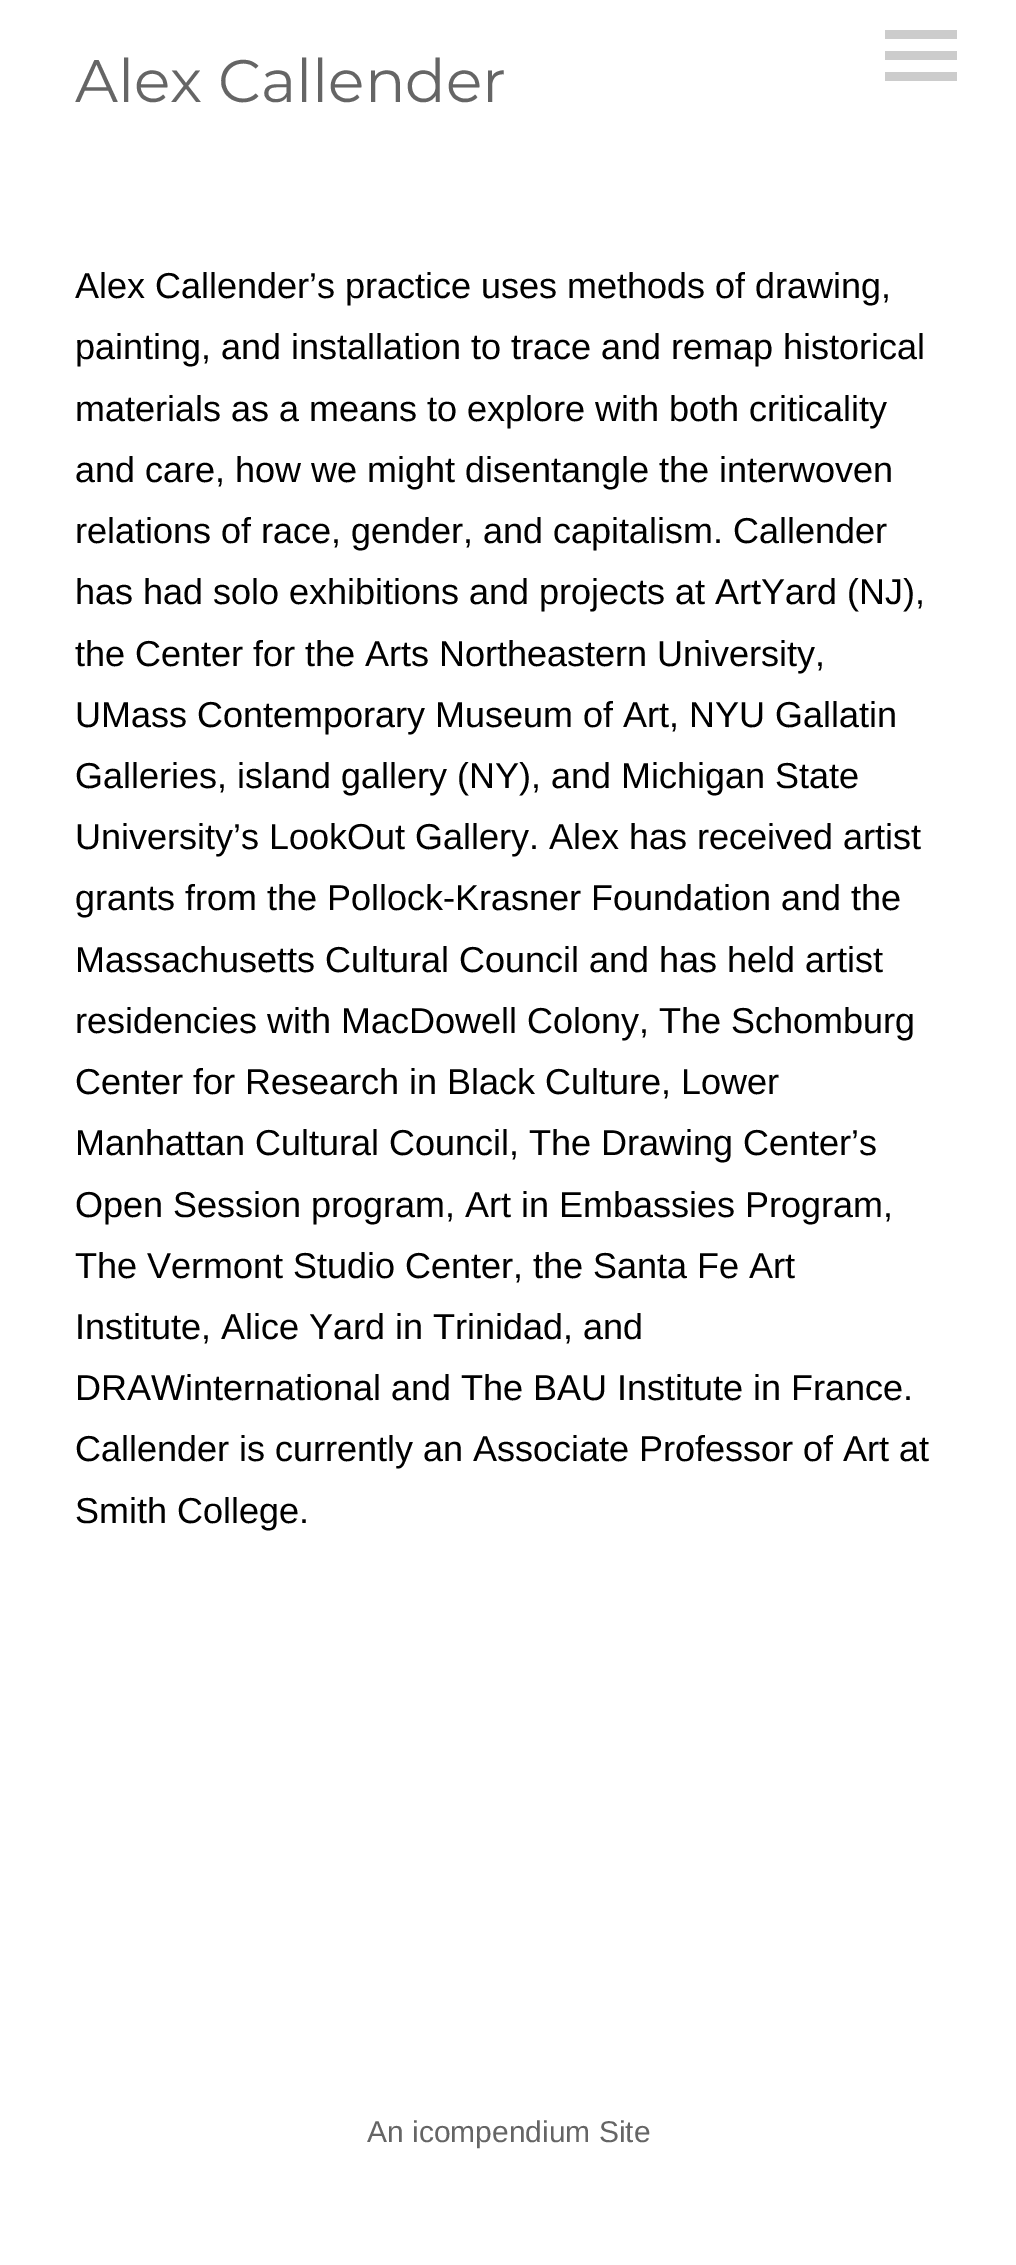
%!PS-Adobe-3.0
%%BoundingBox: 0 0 1016 2265
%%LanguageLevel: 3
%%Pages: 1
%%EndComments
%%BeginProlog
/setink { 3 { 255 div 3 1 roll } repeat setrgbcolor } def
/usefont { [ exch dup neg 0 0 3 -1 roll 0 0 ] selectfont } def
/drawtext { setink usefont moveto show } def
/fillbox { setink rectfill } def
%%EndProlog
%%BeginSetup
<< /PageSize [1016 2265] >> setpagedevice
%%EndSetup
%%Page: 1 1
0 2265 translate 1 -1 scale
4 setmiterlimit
0 0 1016 2265 255 255 255 fillbox
(Alex Callender) 75 102 /Montserrat-Thin 60 101 101 101 drawtext
885 30 72 9 204 204 204 fillbox
885 51 72 9 204 204 204 fillbox
885 72 72 9 204 204 204 fillbox
(Alex Callender’s practice uses methods of drawing,) 75 298 /LiberationSans-Regular 36 0 0 0 drawtext
(painting, and installation to trace and remap historical) 75 359 /LiberationSans-Regular 36 0 0 0 drawtext
(materials as a means to explore with both criticality) 75 421 /LiberationSans-Regular 36 0 0 0 drawtext
(and care, how we might disentangle the interwoven) 75 482 /LiberationSans-Regular 36 0 0 0 drawtext
(relations of race, gender, and capitalism. Callender) 75 543 /LiberationSans-Regular 36 0 0 0 drawtext
(has had solo exhibitions and projects at ArtYard \(NJ\),) 75 604 /LiberationSans-Regular 36 0 0 0 drawtext
(the Center for the Arts Northeastern University,) 75 666 /LiberationSans-Regular 36 0 0 0 drawtext
(UMass Contemporary Museum of Art, NYU Gallatin) 75 727 /LiberationSans-Regular 36 0 0 0 drawtext
(Galleries, island gallery \(NY\), and Michigan State) 75 788 /LiberationSans-Regular 36 0 0 0 drawtext
(University’s LookOut Gallery. Alex has received artist) 75 849 /LiberationSans-Regular 36 0 0 0 drawtext
(grants from the Pollock-Krasner Foundation and the) 75 910 /LiberationSans-Regular 36 0 0 0 drawtext
(Massachusetts Cultural Council and has held artist) 75 972 /LiberationSans-Regular 36 0 0 0 drawtext
(residencies with MacDowell Colony, The Schomburg) 75 1033 /LiberationSans-Regular 36 0 0 0 drawtext
(Center for Research in Black Culture, Lower) 75 1094 /LiberationSans-Regular 36 0 0 0 drawtext
(Manhattan Cultural Council, The Drawing Center’s) 75 1155 /LiberationSans-Regular 36 0 0 0 drawtext
(Open Session program, Art in Embassies Program,) 75 1217 /LiberationSans-Regular 36 0 0 0 drawtext
(The Vermont Studio Center, the Santa Fe Art) 75 1278 /LiberationSans-Regular 36 0 0 0 drawtext
(Institute, Alice Yard in Trinidad, and) 75 1339 /LiberationSans-Regular 36 0 0 0 drawtext
(DRAWinternational and The BAU Institute in France.) 75 1400 /LiberationSans-Regular 36 0 0 0 drawtext
(Callender is currently an Associate Professor of Art at) 75 1461 /LiberationSans-Regular 36 0 0 0 drawtext
(Smith College.) 75 1523 /LiberationSans-Regular 36 0 0 0 drawtext
(An icompendium Site) 367 2142 /LiberationSans-Regular 30 101 101 101 drawtext
showpage
%%EOF
